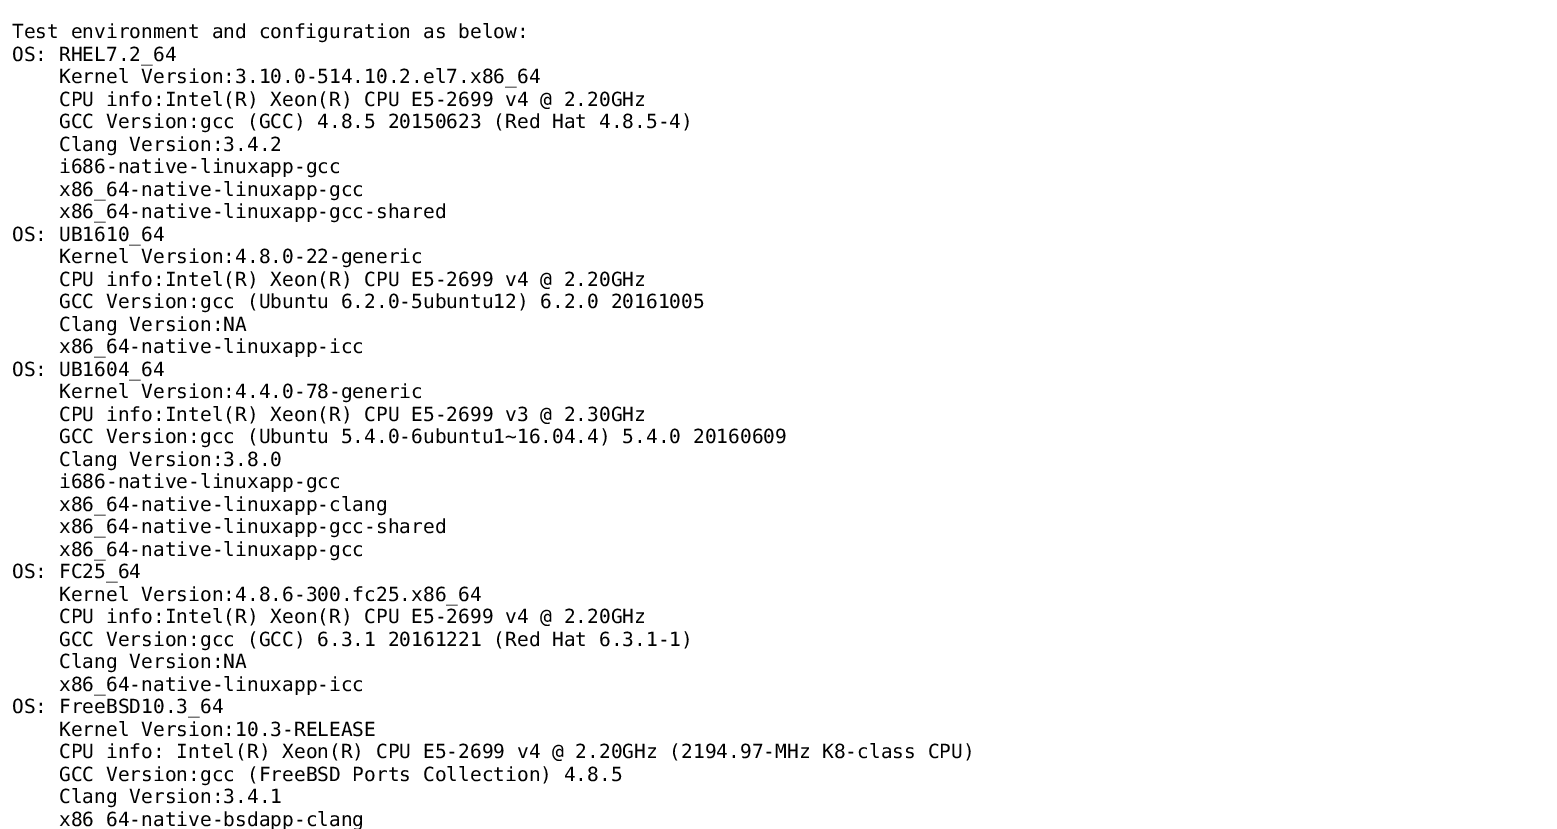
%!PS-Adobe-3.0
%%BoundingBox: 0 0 1557 829
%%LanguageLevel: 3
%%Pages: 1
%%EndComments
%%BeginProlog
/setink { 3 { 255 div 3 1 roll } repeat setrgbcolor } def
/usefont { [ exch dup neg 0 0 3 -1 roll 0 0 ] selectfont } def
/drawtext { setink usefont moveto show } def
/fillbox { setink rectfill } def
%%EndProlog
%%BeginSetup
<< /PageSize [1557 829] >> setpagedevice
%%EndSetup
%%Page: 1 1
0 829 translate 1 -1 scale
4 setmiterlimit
0 0 1557 829 255 255 255 fillbox
(Test environment and configuration as below:) 12 38 /DejaVuSansMono-Regular 19.5 0 0 0 drawtext
(OS: RHEL7.2_64) 12 61 /DejaVuSansMono-Regular 19.5 0 0 0 drawtext
(Kernel Version:3.10.0-514.10.2.el7.x86_64) 59 83 /DejaVuSansMono-Regular 19.5 0 0 0 drawtext
(CPU info:Intel\(R\) Xeon\(R\) CPU E5-2699 v4 @ 2.20GHz) 59 106 /DejaVuSansMono-Regular 19.5 0 0 0 drawtext
(GCC Version:gcc \(GCC\) 4.8.5 20150623 \(Red Hat 4.8.5-4\)) 59 128 /DejaVuSansMono-Regular 19.5 0 0 0 drawtext
(Clang Version:3.4.2) 59 151 /DejaVuSansMono-Regular 19.5 0 0 0 drawtext
(i686-native-linuxapp-gcc) 59 173 /DejaVuSansMono-Regular 19.5 0 0 0 drawtext
(x86_64-native-linuxapp-gcc) 59 196 /DejaVuSansMono-Regular 19.5 0 0 0 drawtext
(x86_64-native-linuxapp-gcc-shared) 59 218 /DejaVuSansMono-Regular 19.5 0 0 0 drawtext
(OS: UB1610_64) 12 241 /DejaVuSansMono-Regular 19.5 0 0 0 drawtext
(Kernel Version:4.8.0-22-generic) 59 263 /DejaVuSansMono-Regular 19.5 0 0 0 drawtext
(CPU info:Intel\(R\) Xeon\(R\) CPU E5-2699 v4 @ 2.20GHz) 59 286 /DejaVuSansMono-Regular 19.5 0 0 0 drawtext
(GCC Version:gcc \(Ubuntu 6.2.0-5ubuntu12\) 6.2.0 20161005) 59 308 /DejaVuSansMono-Regular 19.5 0 0 0 drawtext
(Clang Version:NA) 59 331 /DejaVuSansMono-Regular 19.5 0 0 0 drawtext
(x86_64-native-linuxapp-icc) 59 353 /DejaVuSansMono-Regular 19.5 0 0 0 drawtext
(OS: UB1604_64) 12 376 /DejaVuSansMono-Regular 19.5 0 0 0 drawtext
(Kernel Version:4.4.0-78-generic) 59 398 /DejaVuSansMono-Regular 19.5 0 0 0 drawtext
(CPU info:Intel\(R\) Xeon\(R\) CPU E5-2699 v3 @ 2.30GHz) 59 421 /DejaVuSansMono-Regular 19.5 0 0 0 drawtext
(GCC Version:gcc \(Ubuntu 5.4.0-6ubuntu1~16.04.4\) 5.4.0 20160609) 59 443 /DejaVuSansMono-Regular 19.5 0 0 0 drawtext
(Clang Version:3.8.0) 59 466 /DejaVuSansMono-Regular 19.5 0 0 0 drawtext
(i686-native-linuxapp-gcc) 59 488 /DejaVuSansMono-Regular 19.5 0 0 0 drawtext
(x86_64-native-linuxapp-clang) 59 511 /DejaVuSansMono-Regular 19.5 0 0 0 drawtext
(x86_64-native-linuxapp-gcc-shared) 59 533 /DejaVuSansMono-Regular 19.5 0 0 0 drawtext
(x86_64-native-linuxapp-gcc) 59 556 /DejaVuSansMono-Regular 19.5 0 0 0 drawtext
(OS: FC25_64) 12 578 /DejaVuSansMono-Regular 19.5 0 0 0 drawtext
(Kernel Version:4.8.6-300.fc25.x86_64) 59 601 /DejaVuSansMono-Regular 19.5 0 0 0 drawtext
(CPU info:Intel\(R\) Xeon\(R\) CPU E5-2699 v4 @ 2.20GHz) 59 623 /DejaVuSansMono-Regular 19.5 0 0 0 drawtext
(GCC Version:gcc \(GCC\) 6.3.1 20161221 \(Red Hat 6.3.1-1\)) 59 646 /DejaVuSansMono-Regular 19.5 0 0 0 drawtext
(Clang Version:NA) 59 668 /DejaVuSansMono-Regular 19.5 0 0 0 drawtext
(x86_64-native-linuxapp-icc) 59 691 /DejaVuSansMono-Regular 19.5 0 0 0 drawtext
(OS: FreeBSD10.3_64) 12 713 /DejaVuSansMono-Regular 19.5 0 0 0 drawtext
(Kernel Version:10.3-RELEASE) 59 736 /DejaVuSansMono-Regular 19.5 0 0 0 drawtext
(CPU info: Intel\(R\) Xeon\(R\) CPU E5-2699 v4 @ 2.20GHz \(2194.97-MHz K8-class CPU\)) 59 758 /DejaVuSansMono-Regular 19.5 0 0 0 drawtext
(GCC Version:gcc \(FreeBSD Ports Collection\) 4.8.5) 59 781 /DejaVuSansMono-Regular 19.5 0 0 0 drawtext
(Clang Version:3.4.1) 59 803 /DejaVuSansMono-Regular 19.5 0 0 0 drawtext
(x86_64-native-bsdapp-clang) 59 826 /DejaVuSansMono-Regular 19.5 0 0 0 drawtext
showpage
%%EOF
